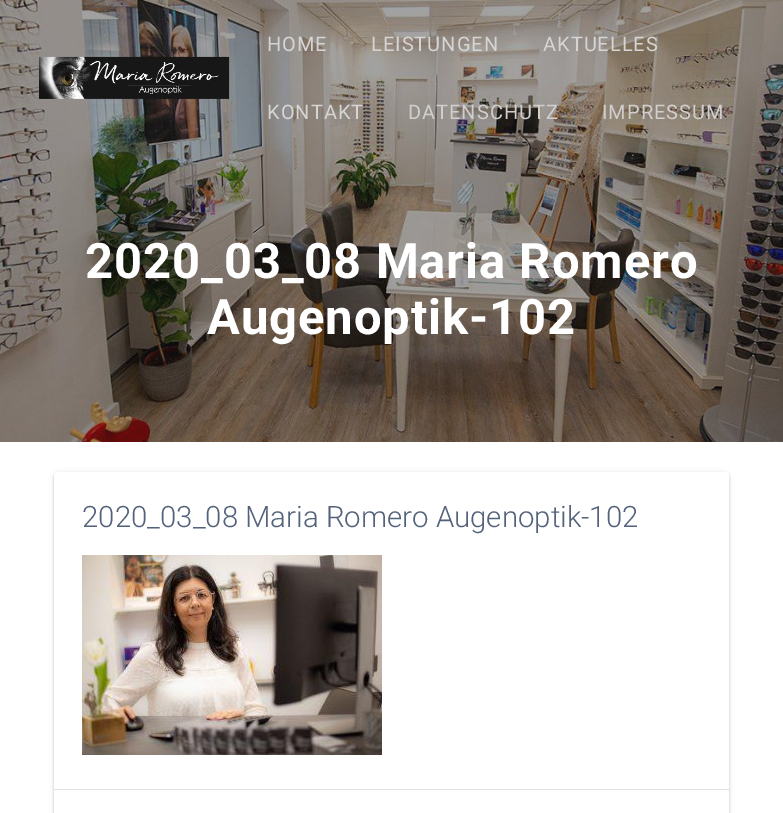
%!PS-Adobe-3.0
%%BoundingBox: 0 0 783 813
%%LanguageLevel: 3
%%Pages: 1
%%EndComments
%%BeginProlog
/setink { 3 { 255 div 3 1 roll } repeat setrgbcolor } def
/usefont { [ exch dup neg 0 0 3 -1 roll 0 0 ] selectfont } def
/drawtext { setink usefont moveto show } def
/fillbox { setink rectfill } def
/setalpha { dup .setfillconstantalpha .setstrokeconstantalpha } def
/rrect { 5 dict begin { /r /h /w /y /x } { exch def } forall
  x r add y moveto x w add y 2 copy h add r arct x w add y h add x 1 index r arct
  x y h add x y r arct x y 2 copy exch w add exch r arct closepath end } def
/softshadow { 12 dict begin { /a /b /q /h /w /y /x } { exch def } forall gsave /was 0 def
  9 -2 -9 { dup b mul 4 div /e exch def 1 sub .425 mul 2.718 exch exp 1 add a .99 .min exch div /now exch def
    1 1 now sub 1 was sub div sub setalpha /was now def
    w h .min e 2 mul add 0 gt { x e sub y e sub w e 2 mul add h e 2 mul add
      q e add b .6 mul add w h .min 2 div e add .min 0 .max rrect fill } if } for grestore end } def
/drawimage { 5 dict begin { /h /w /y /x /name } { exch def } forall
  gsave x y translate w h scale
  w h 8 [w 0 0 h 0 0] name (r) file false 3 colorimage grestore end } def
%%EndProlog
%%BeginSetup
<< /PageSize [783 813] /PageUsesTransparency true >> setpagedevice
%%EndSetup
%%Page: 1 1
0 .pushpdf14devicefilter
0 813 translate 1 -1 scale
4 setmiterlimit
0 0 783 813 255 255 255 fillbox
(assets/img2.rgb) 0 0 783 442 drawimage
(assets/img1.rgb) 39 56 191 43 drawimage
/Roboto-Regular 20 usefont
215 213 211 setink
267 51 moveto 1 0 (HOME) ashow
371 51 moveto 1 0 (LEISTUNGEN) ashow
543 51 moveto 1 0 (AKTUELLES) ashow
267 119 moveto 1 0 (KONTAKT) ashow
209 207 205 setink
408 119 moveto 1 0 (DATENSCHUTZ) ashow
602 119 moveto 1 0 (IMPRESSUM) ashow
/Roboto-Bold 49 usefont
255 255 255 setink
85 278 moveto 0.9 0 (2020_03_08 Maria Romero) ashow
207 334 moveto 0.9 0 (Augenoptik-102) ashow
0 0 0 setink
54 473 675 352 4 2.5 0.12 softshadow
54 474 675 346 4 1 0.14 softshadow
255 255 255 setink
54 472 675 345 4 rrect fill
(2020_03_08 Maria Romero Augenoptik-102) 82 527 /Roboto-Light 29.4 84 97 122 drawtext
(assets/img3.rgb) 82 555 300 200 drawimage
54 789 675 1 224 225 225 fillbox
.poppdf14devicefilter showpage
%%EOF
